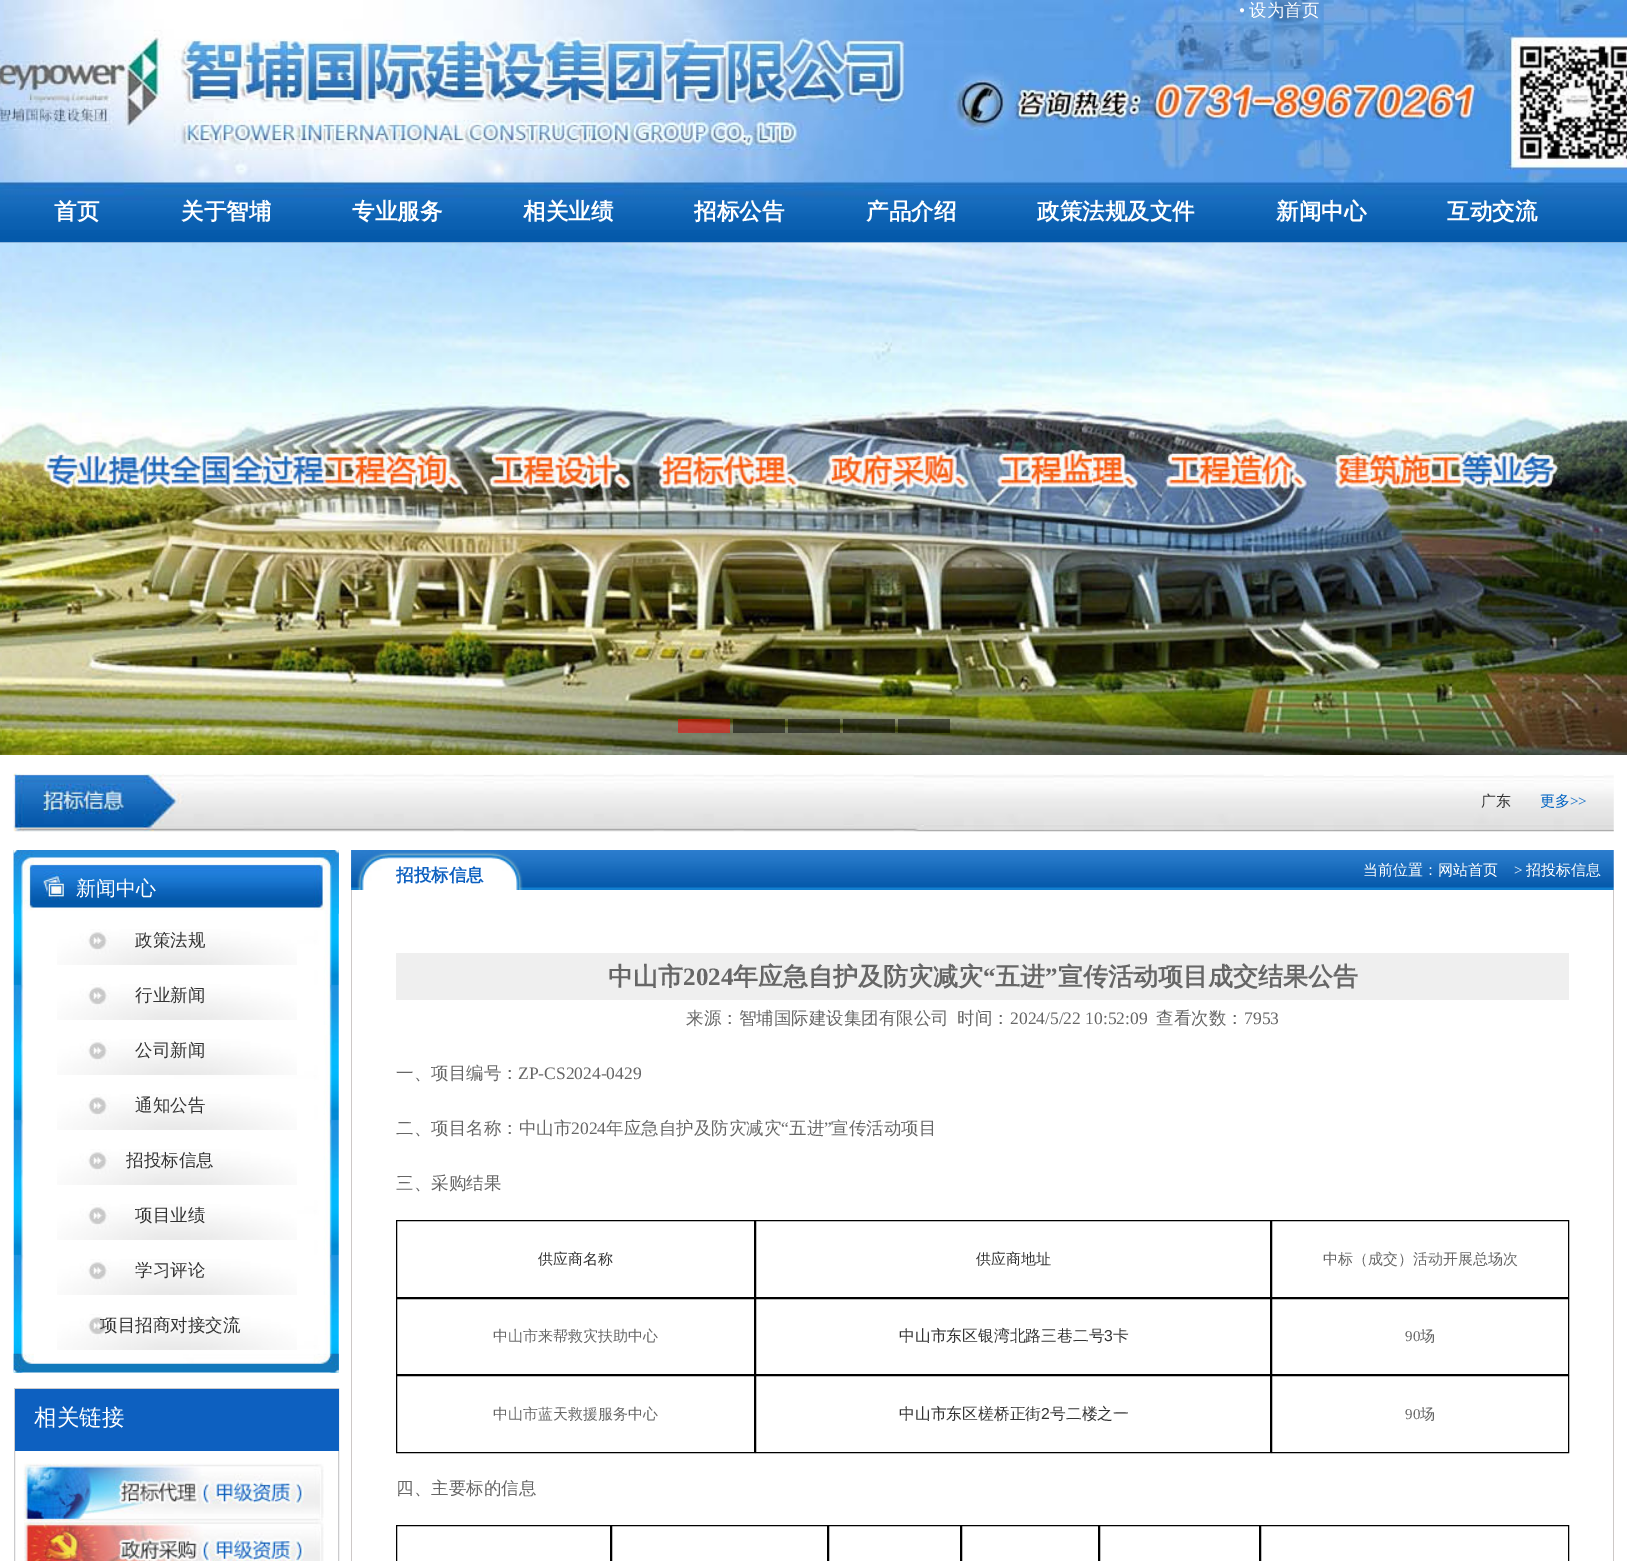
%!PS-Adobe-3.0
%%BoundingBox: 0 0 1627 1561
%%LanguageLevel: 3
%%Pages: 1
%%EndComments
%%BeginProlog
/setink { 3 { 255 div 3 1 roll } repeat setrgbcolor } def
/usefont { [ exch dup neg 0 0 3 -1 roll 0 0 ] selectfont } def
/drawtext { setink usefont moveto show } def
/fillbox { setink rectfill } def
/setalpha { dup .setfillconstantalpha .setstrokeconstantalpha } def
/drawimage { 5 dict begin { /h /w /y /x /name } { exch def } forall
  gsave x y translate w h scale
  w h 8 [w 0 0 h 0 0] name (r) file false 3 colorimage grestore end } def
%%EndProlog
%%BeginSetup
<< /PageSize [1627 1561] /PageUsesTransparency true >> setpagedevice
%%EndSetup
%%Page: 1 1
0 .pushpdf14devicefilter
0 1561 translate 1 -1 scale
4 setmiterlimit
0 0 1627 1561 255 255 255 fillbox
(assets/img1.rgb) 0 0 1627 243 drawimage
(•) 1239 16 /LiberationSerif-Regular 17.5 255 255 255 drawtext
(设为首页) 1249 16 /WenQuanYiZenHei-Medium 17.5 255 255 255 drawtext
(首页) 54 219 /WenQuanYiZenHei-Bold 22.5 255 255 255 drawtext
(关于智埔) 181 219 /WenQuanYiZenHei-Bold 22.5 255 255 255 drawtext
(专业服务) 352 219 /WenQuanYiZenHei-Bold 22.5 255 255 255 drawtext
(相关业绩) 523 219 /WenQuanYiZenHei-Bold 22.5 255 255 255 drawtext
(招标公告) 694 219 /WenQuanYiZenHei-Bold 22.5 255 255 255 drawtext
(产品介绍) 866 219 /WenQuanYiZenHei-Bold 22.5 255 255 255 drawtext
(政策法规及文件) 1037 219 /WenQuanYiZenHei-Bold 22.5 255 255 255 drawtext
(新闻中心) 1276 219 /WenQuanYiZenHei-Bold 22.5 255 255 255 drawtext
(互动交流) 1447 219 /WenQuanYiZenHei-Bold 22.5 255 255 255 drawtext
(assets/img2.rgb) 0 242 1627 513 drawimage
0.5 setalpha
678 719 52 14 255 0 0 fillbox
733 719 52 14 0 0 0 fillbox
788 719 52 14 0 0 0 fillbox
843 719 52 14 0 0 0 fillbox
898 719 52 14 0 0 0 fillbox
1 setalpha
(assets/img3.rgb) 13 773 1601 59 drawimage
(广东) 1481 806 /WenQuanYiZenHei-Medium 15 51 51 51 drawtext
(更多) 1540 806 /WenQuanYiZenHei-Medium 15 0 99 195 drawtext
(>>) 1570 806 /LiberationSerif-Regular 15 0 99 195 drawtext
(assets/img4.rgb) 13 850 326 523 drawimage
(assets/img5.rgb) 13 850 326 64 drawimage
(新闻中心) 76 895 /WenQuanYiZenHei-Medium 20 255 255 255 drawtext
(assets/img6.rgb) 57 929 240 36 drawimage
(政策法规) 135 946 /WenQuanYiZenHei-Medium 17.5 51 51 51 drawtext
(assets/img6.rgb) 57 984 240 36 drawimage
(行业新闻) 135 1001 /WenQuanYiZenHei-Medium 17.5 51 51 51 drawtext
(assets/img6.rgb) 57 1039 240 36 drawimage
(公司新闻) 135 1056 /WenQuanYiZenHei-Medium 17.5 51 51 51 drawtext
(assets/img6.rgb) 57 1094 240 36 drawimage
(通知公告) 135 1111 /WenQuanYiZenHei-Medium 17.5 51 51 51 drawtext
(assets/img6.rgb) 57 1149 240 36 drawimage
(招投标信息) 126 1166 /WenQuanYiZenHei-Medium 17.5 51 51 51 drawtext
(assets/img6.rgb) 57 1204 240 36 drawimage
(项目业绩) 135 1221 /WenQuanYiZenHei-Medium 17.5 51 51 51 drawtext
(assets/img6.rgb) 57 1259 240 36 drawimage
(学习评论) 135 1276 /WenQuanYiZenHei-Medium 17.5 51 51 51 drawtext
(assets/img6.rgb) 57 1314 240 36 drawimage
(项目招商对接交流) 100 1331 /WenQuanYiZenHei-Medium 17.5 51 51 51 drawtext
(assets/img7.rgb) 13 1353 326 20 drawimage
203 203 205 setink
14.5 1388.5 324 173 rectstroke
15 1389 324 62 13 96 192 fillbox
(相关链接) 34 1425 /WenQuanYiZenHei-Medium 22.5 255 255 255 drawtext
(assets/img8.rgb) 23 1463 301 59 drawimage
(assets/img9.rgb) 24 1521 300 40 drawimage
(assets/img10.rgb) 351 850 1263 40 drawimage
(assets/img11.rgb) 351 850 172 40 drawimage
(招投标信息) 396 881 /WenQuanYiZenHei-Bold 17.5 13 96 192 drawtext
(当前位置：网站首页) 1363 875 /WenQuanYiZenHei-Medium 15 255 255 255 drawtext
(>) 1514 875 /LiberationSerif-Regular 15 255 255 255 drawtext
(招投标信息) 1526 875 /WenQuanYiZenHei-Medium 15 255 255 255 drawtext
1613 890 1 671 205 200 199 fillbox
351 890 1 671 205 200 199 fillbox
396 953 1173 47 239 239 239 fillbox
(中山市) 608 985 /WenQuanYiZenHei-Bold 25 102 102 102 drawtext
(2024) 683 985 /LiberationSerif-Bold 25 102 102 102 drawtext
(年应急自护及防灾减灾) 733 985 /WenQuanYiZenHei-Bold 25 102 102 102 drawtext
(“) 983 985 /LiberationSerif-Bold 25 102 102 102 drawtext
(五进) 995 985 /WenQuanYiZenHei-Bold 25 102 102 102 drawtext
(”) 1045 985 /LiberationSerif-Bold 25 102 102 102 drawtext
(宣传活动项目成交结果公告) 1058 985 /WenQuanYiZenHei-Bold 25 102 102 102 drawtext
(来源：智埔国际建设集团有限公司) 686 1024 /WenQuanYiZenHei-Medium 17.5 102 102 102 drawtext
(时间：) 957 1024 /WenQuanYiZenHei-Medium 17.5 102 102 102 drawtext
(2024/5/22 10:52:09) 1010 1024 /LiberationSerif-Regular 17.5 102 102 102 drawtext
(查看次数：) 1156 1024 /WenQuanYiZenHei-Medium 17.5 102 102 102 drawtext
(7953) 1244 1024 /LiberationSerif-Regular 17.5 102 102 102 drawtext
(一、项目编号：) 396 1079 /WenQuanYiZenHei-Medium 17.5 102 102 102 drawtext
(ZP-CS2024-0429) 518 1079 /LiberationSerif-Regular 17.5 102 102 102 drawtext
(二、项目名称：中山市) 396 1134 /WenQuanYiZenHei-Medium 17.5 102 102 102 drawtext
(2024) 571 1134 /LiberationSerif-Regular 17.5 102 102 102 drawtext
(年应急自护及防灾减灾) 606 1134 /WenQuanYiZenHei-Medium 17.5 102 102 102 drawtext
(“) 781 1134 /LiberationSerif-Regular 17.5 102 102 102 drawtext
(五进) 789 1134 /WenQuanYiZenHei-Medium 17.5 102 102 102 drawtext
(”) 824 1134 /LiberationSerif-Regular 17.5 102 102 102 drawtext
(宣传活动项目) 831 1134 /WenQuanYiZenHei-Medium 17.5 102 102 102 drawtext
(三、采购结果) 396 1189 /WenQuanYiZenHei-Medium 17.5 102 102 102 drawtext
0 0 0 setink
396.5 1220.5 358 77 rectstroke
(供应商名称) 538 1264 /WenQuanYiZenHei-Medium 15 51 51 51 drawtext
0 0 0 setink
755.5 1220.5 515 77 rectstroke
(供应商地址) 976 1264 /WenQuanYiZenHei-Medium 15 51 51 51 drawtext
0 0 0 setink
1271.5 1220.5 297 77 rectstroke
(中标（成交）活动开展总场次) 1323 1264 /WenQuanYiZenHei-Medium 15 102 102 102 drawtext
0 0 0 setink
396.5 1298.5 358 76 rectstroke
(中山市来帮救灾扶助中心) 493 1341 /WenQuanYiZenHei-Medium 15 102 102 102 drawtext
0 0 0 setink
755.5 1298.5 515 76 rectstroke
(中山市东区银湾北路三巷二号) 899 1341 /WenQuanYiZenHei-Medium 15.8 51 51 51 drawtext
(3) 1104 1341 /LiberationSans-Regular 15.8 51 51 51 drawtext
(卡) 1113 1341 /WenQuanYiZenHei-Medium 15.8 51 51 51 drawtext
0 0 0 setink
1271.5 1298.5 297 76 rectstroke
(90) 1405 1341 /LiberationSerif-Regular 15 102 102 102 drawtext
(场) 1420 1341 /WenQuanYiZenHei-Medium 15 102 102 102 drawtext
0 0 0 setink
396.5 1375.5 358 77 rectstroke
(中山市蓝天救援服务中心) 493 1419 /WenQuanYiZenHei-Medium 15 102 102 102 drawtext
0 0 0 setink
755.5 1375.5 515 77 rectstroke
(中山市东区槎桥正街) 899 1419 /WenQuanYiZenHei-Medium 15.8 51 51 51 drawtext
(2) 1041 1419 /LiberationSans-Regular 15.8 51 51 51 drawtext
(号二楼之一) 1050 1419 /WenQuanYiZenHei-Medium 15.8 51 51 51 drawtext
0 0 0 setink
1271.5 1375.5 297 77 rectstroke
(90) 1405 1419 /LiberationSerif-Regular 15 102 102 102 drawtext
(场) 1420 1419 /WenQuanYiZenHei-Medium 15 102 102 102 drawtext
(四、主要标的信息) 396 1494 /WenQuanYiZenHei-Medium 17.5 102 102 102 drawtext
0 0 0 setink
396.5 1525.5 214 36 rectstroke
611.5 1525.5 216 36 rectstroke
828.5 1525.5 132 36 rectstroke
961.5 1525.5 137 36 rectstroke
1099.5 1525.5 160 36 rectstroke
1260.5 1525.5 308 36 rectstroke
.poppdf14devicefilter showpage
%%EOF
